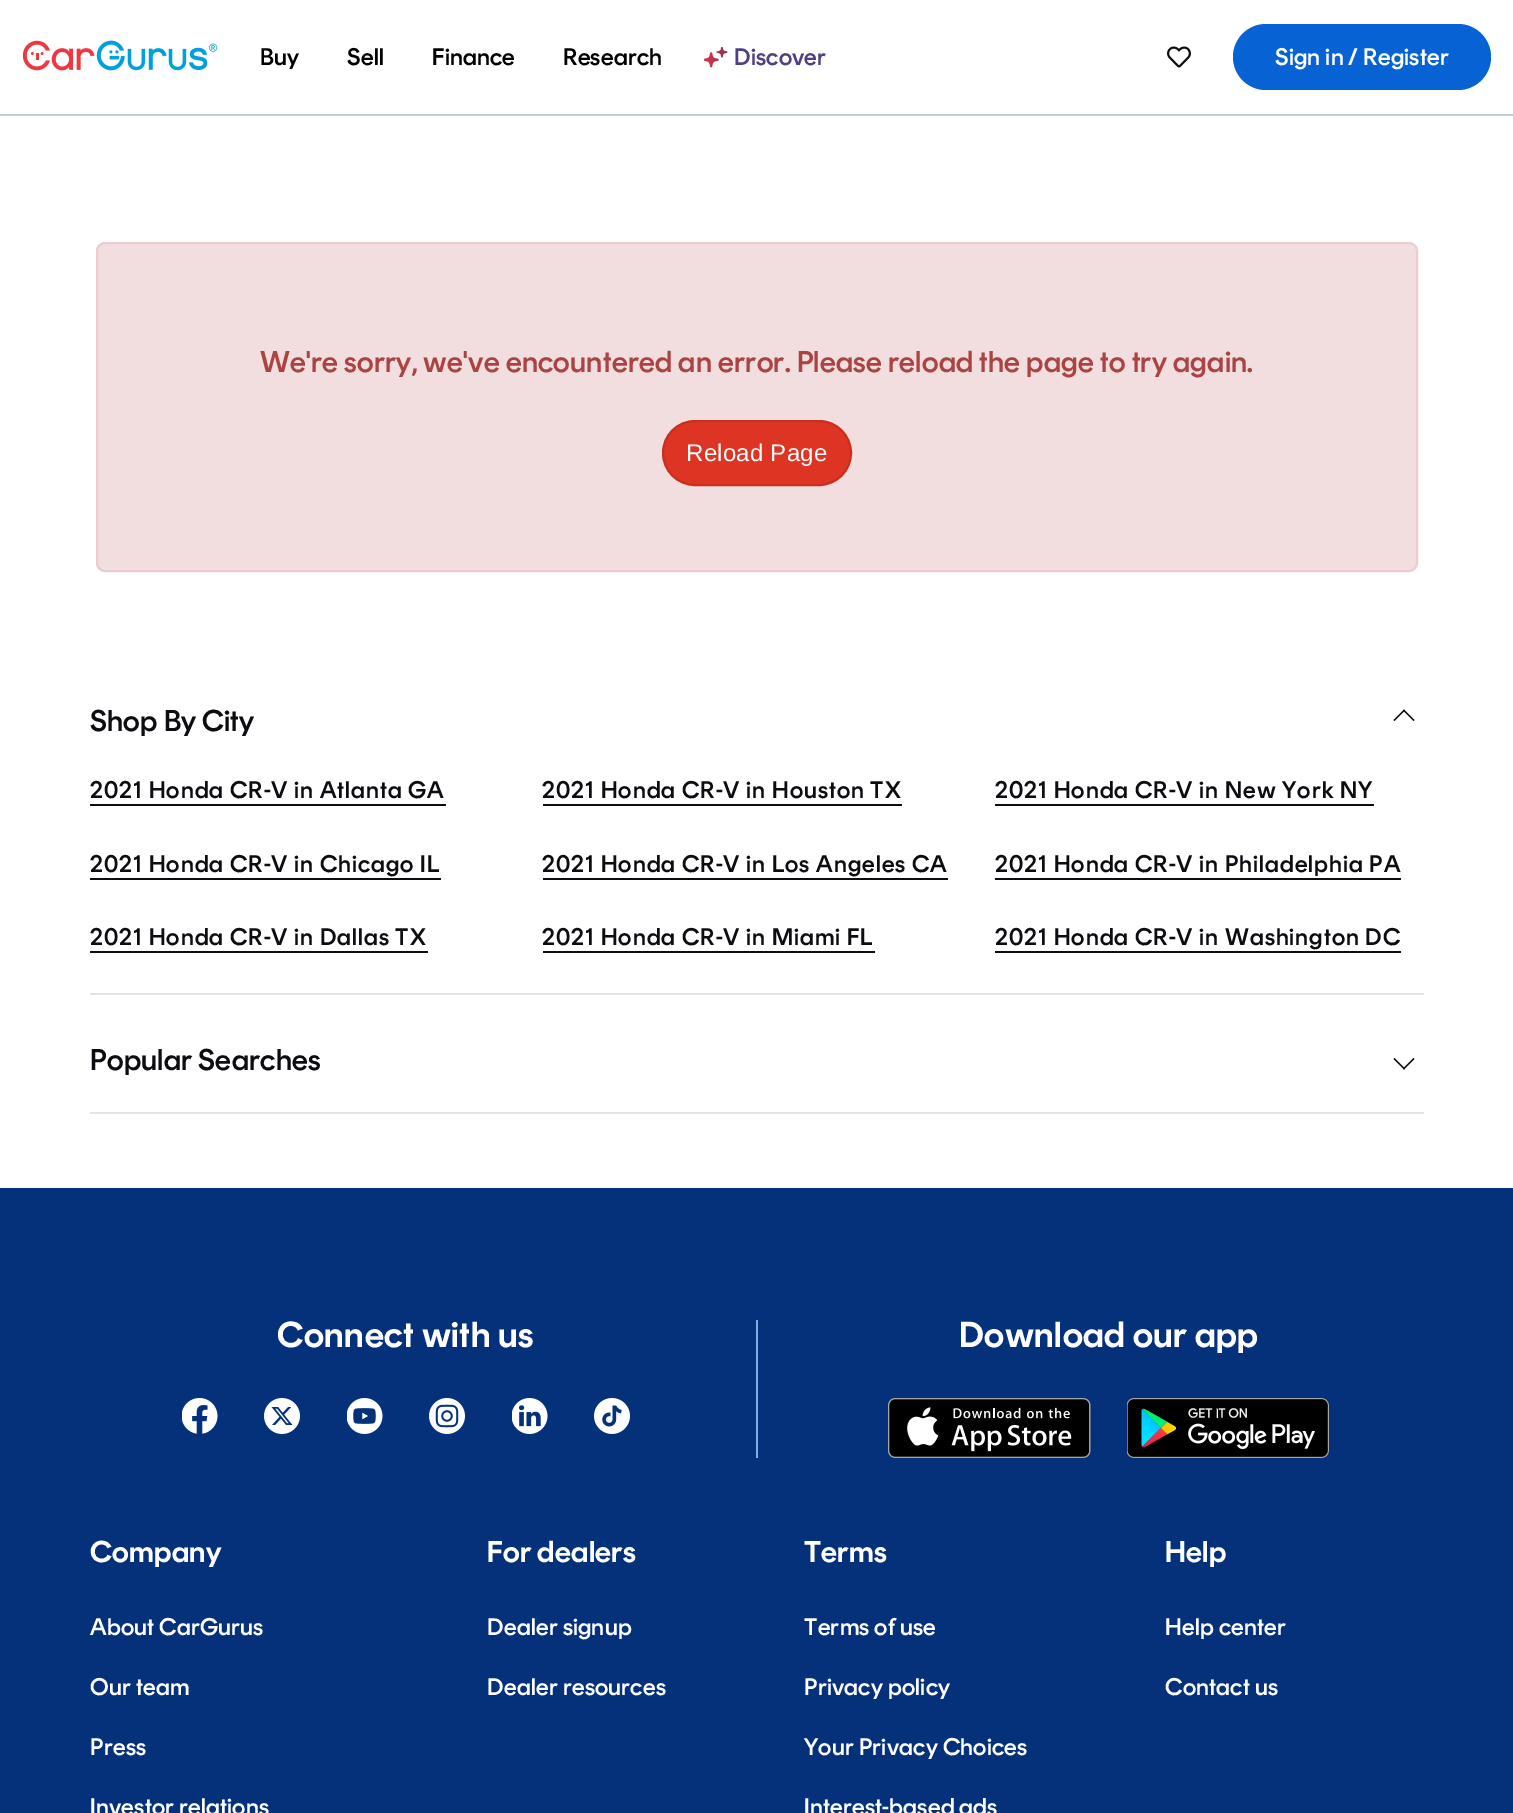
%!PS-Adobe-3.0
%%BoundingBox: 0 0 1513 1813
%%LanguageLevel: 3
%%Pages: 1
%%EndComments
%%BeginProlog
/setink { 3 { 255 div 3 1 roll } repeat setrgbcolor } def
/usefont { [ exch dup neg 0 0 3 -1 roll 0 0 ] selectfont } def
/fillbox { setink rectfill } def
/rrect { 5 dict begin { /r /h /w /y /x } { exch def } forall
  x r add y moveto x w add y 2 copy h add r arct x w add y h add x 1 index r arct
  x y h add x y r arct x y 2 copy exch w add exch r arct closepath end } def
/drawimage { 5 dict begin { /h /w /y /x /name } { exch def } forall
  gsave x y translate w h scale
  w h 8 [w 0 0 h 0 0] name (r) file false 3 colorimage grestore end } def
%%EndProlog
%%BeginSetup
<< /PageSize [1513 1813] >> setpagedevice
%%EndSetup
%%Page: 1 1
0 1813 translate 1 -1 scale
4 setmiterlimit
0 0 1513 1813 255 255 255 fillbox
0 114 1513 2 195 205 213 fillbox
(assets/img1.rgb) 23 40 195 31 drawimage
/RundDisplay-Medium 24 usefont
0 0 0 setink
260 65 moveto 0.25 0 (Buy) ashow
347 65 moveto 0.25 0 (Sell) ashow
432 65 moveto 0.25 0 (Finance) ashow
563 65 moveto 0.25 0 (Research) ashow
(assets/img2.rgb) 704 47 24 21 drawimage
79 64 131 setink
734 65 moveto 0.25 0 (Discover) ashow
(assets/img3.rgb) 1167 46 24 22 drawimage
7 99 211 setink
1233 24 258 66 33 rrect fill
255 255 255 setink
1275 65 moveto 0.25 0 (Sign in / Register) ashow
242 222 222 setink
97 243 1320 328 8 rrect gsave fill grestore
235 204 209 setink
2 setlinewidth
stroke
/RundDisplay-Medium 30 usefont
169 68 66 setink
260 372 moveto 0.25 0 (We're sorry, we've encountered an error. Please reload the page to try again.) ashow
222 52 35 setink
663 421 188 64 32 rrect gsave fill grestore
201 46 30 setink
stroke
/LiberationSans-Regular 24 usefont
255 255 255 setink
686 461 moveto 0.25 0 (Reload Page) ashow
/RundDisplay-Medium 30 usefont
12 12 17 setink
90 731 moveto 0.25 0 (Shop By City) ashow
1393.5 720 moveto 1404 709.5 lineto 1405 710.5 lineto 1394.5 721 lineto closepath fill
1403 710.5 moveto 1404 709.5 lineto 1414.5 720 lineto 1413.5 721 lineto closepath fill
90 993 1334 2 228 228 229 fillbox
/RundDisplay-Medium 24 usefont
12 12 17 setink
90 798 moveto 1.05 0 (2021 Honda CR-V in Atlanta GA) ashow
90 804 356 2 12 12 17 fillbox
542 798 moveto 1.05 0 (2021 Honda CR-V in Houston TX) ashow
543 804 359 2 12 12 17 fillbox
995 798 moveto 1.05 0 (2021 Honda CR-V in New York NY) ashow
995 804 379 2 12 12 17 fillbox
90 872 moveto 1.05 0 (2021 Honda CR-V in Chicago IL) ashow
90 878 351 2 12 12 17 fillbox
542 872 moveto 1.05 0 (2021 Honda CR-V in Los Angeles CA) ashow
543 878 405 2 12 12 17 fillbox
995 872 moveto 1.05 0 (2021 Honda CR-V in Philadelphia PA) ashow
995 878 406 2 12 12 17 fillbox
90 945 moveto 1.05 0 (2021 Honda CR-V in Dallas TX) ashow
90 951 338 2 12 12 17 fillbox
542 945 moveto 1.05 0 (2021 Honda CR-V in Miami FL) ashow
543 951 332 2 12 12 17 fillbox
995 945 moveto 1.05 0 (2021 Honda CR-V in Washington DC) ashow
995 951 406 2 12 12 17 fillbox
90 1112 1334 2 228 228 229 fillbox
/RundDisplay-Medium 30 usefont
12 12 17 setink
90 1070 moveto 0.25 0 (Popular Searches) ashow
1414.5 1059 moveto 1404 1069.5 lineto 1403 1068.5 lineto 1413.5 1058 lineto closepath fill
1405 1068.5 moveto 1404 1069.5 lineto 1393.5 1059 lineto 1394.5 1058 lineto closepath fill
0 1188 1513 625 5 49 123 fillbox
/RundDisplay-SemiBold 36 usefont
255 255 255 setink
277 1347 moveto 0.5 0 (Connect with us) ashow
(assets/img4.rgb) 182 1398 36 36 drawimage
(assets/img5.rgb) 264 1398 36 36 drawimage
(assets/img6.rgb) 347 1398 36 36 drawimage
(assets/img7.rgb) 429 1398 36 36 drawimage
(assets/img8.rgb) 512 1398 36 36 drawimage
(assets/img9.rgb) 594 1398 36 36 drawimage
756 1320 2 138 125 176 227 fillbox
255 255 255 setink
959 1347 moveto 0.5 0 (Download our app) ashow
(assets/img10.rgb) 888 1398 203 60 drawimage
(assets/img11.rgb) 1127 1398 202 60 drawimage
/RundDisplay-SemiBold 30 usefont
90 1562 moveto 0.25 0 (Company) ashow
/RundDisplay-Medium 24 usefont
90 1635 moveto 0.25 0 (About CarGurus) ashow
90 1695 moveto 0.25 0 (Our team) ashow
90 1755 moveto 0.25 0 (Press) ashow
90 1815 moveto 0.25 0 (Investor relations) ashow
/RundDisplay-SemiBold 30 usefont
487 1562 moveto 0.25 0 (For dealers) ashow
/RundDisplay-Medium 24 usefont
487 1635 moveto 0.25 0 (Dealer signup) ashow
487 1695 moveto 0.25 0 (Dealer resources) ashow
/RundDisplay-SemiBold 30 usefont
804 1562 moveto 0.25 0 (Terms) ashow
/RundDisplay-Medium 24 usefont
804 1635 moveto 0.25 0 (Terms of use) ashow
804 1695 moveto 0.25 0 (Privacy policy) ashow
804 1755 moveto 0.25 0 (Your Privacy Choices) ashow
804 1815 moveto 0.25 0 (Interest-based ads) ashow
/RundDisplay-SemiBold 30 usefont
1165 1562 moveto 0.25 0 (Help) ashow
/RundDisplay-Medium 24 usefont
1165 1635 moveto 0.25 0 (Help center) ashow
1165 1695 moveto 0.25 0 (Contact us) ashow
showpage
%%EOF
